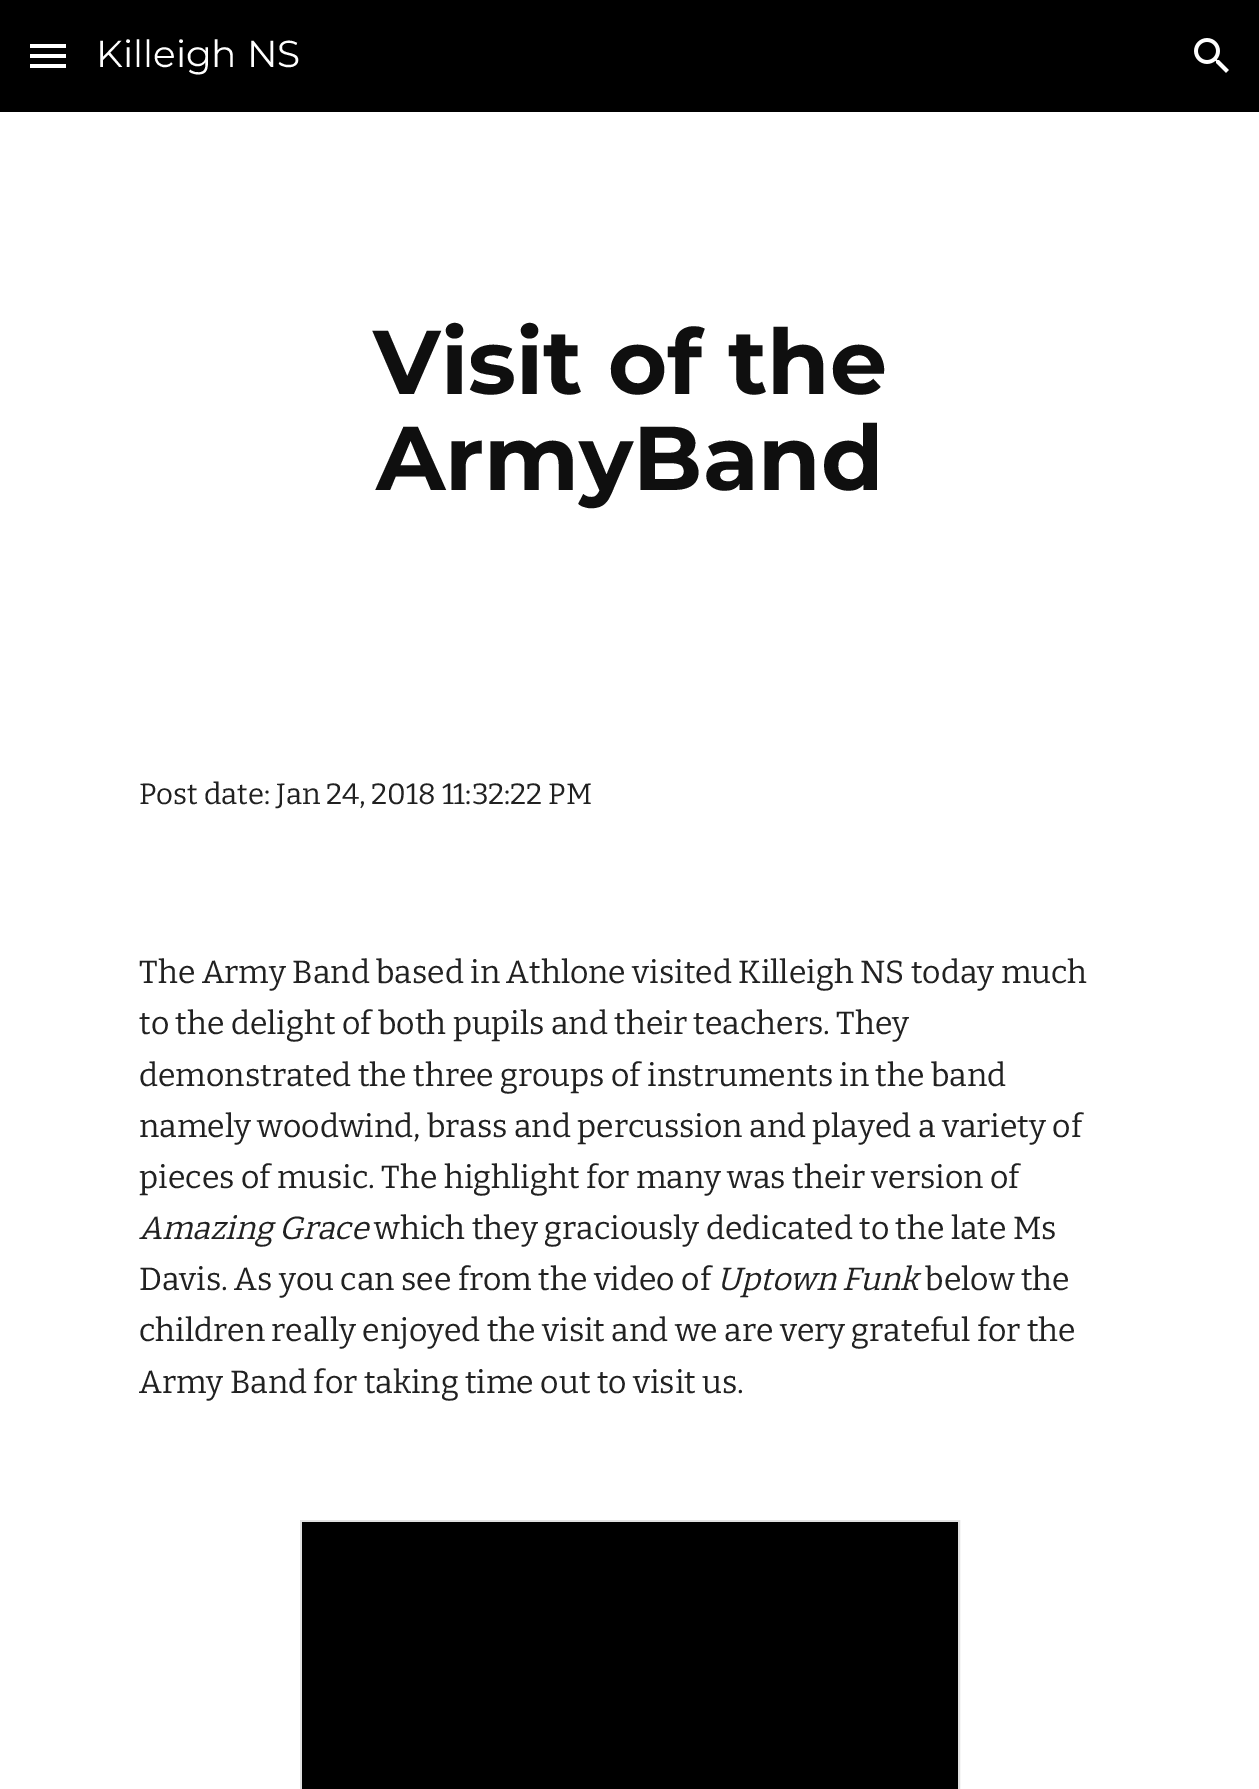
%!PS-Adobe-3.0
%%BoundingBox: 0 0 1259 1789
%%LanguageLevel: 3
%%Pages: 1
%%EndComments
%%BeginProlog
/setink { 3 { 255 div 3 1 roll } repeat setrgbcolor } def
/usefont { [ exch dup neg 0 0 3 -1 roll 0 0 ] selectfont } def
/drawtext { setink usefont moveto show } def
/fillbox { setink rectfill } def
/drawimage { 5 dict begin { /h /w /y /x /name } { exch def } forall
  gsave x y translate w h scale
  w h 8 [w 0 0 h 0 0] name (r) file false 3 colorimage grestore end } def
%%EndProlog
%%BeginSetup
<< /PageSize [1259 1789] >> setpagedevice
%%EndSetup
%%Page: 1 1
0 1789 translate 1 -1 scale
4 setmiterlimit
0 0 1259 1789 255 255 255 fillbox
0 0 1259 112 0 0 0 fillbox
30 44 36 4 255 255 255 fillbox
30 54 36 4 255 255 255 fillbox
30 64 36 4 255 255 255 fillbox
(Killeigh NS) 96 67 /Montserrat-Regular 37.5 255 255 255 drawtext
(assets/img1.rgb) 1194 38 35 35 drawimage
(Visit of the) 373 394 /Montserrat-Bold 90.5 15 15 15 drawtext
(ArmyBand) 376 490 /Montserrat-Bold 90.5 15 15 15 drawtext
(Post date: Jan 24, 2018 11:32:22 PM) 139 804 /Bitter-Regular 29.3 33 33 33 drawtext
(The Army Band based in Athlone visited Killeigh NS today much) 139 983 /Bitter-Regular 32 33 33 33 drawtext
(to the delight of both pupils and their teachers. They) 139 1034 /Bitter-Regular 32 33 33 33 drawtext
(demonstrated the three groups of instruments in the band) 139 1086 /Bitter-Regular 32 33 33 33 drawtext
(namely woodwind, brass and percussion and played a variety of) 139 1137 /Bitter-Regular 32 33 33 33 drawtext
(pieces of music. The highlight for many was their version of) 139 1188 /Bitter-Regular 32 33 33 33 drawtext
(Amazing Grace) 139 1239 /Bitter-Italic 32 33 33 33 drawtext
(which they graciously dedicated to the late Ms) 374 1239 /Bitter-Regular 32 33 33 33 drawtext
(Davis. As you can see from the video of) 139 1290 /Bitter-Regular 32 33 33 33 drawtext
(Uptown Funk) 717 1290 /Bitter-Italic 32 33 33 33 drawtext
(below the) 925 1290 /Bitter-Regular 32 33 33 33 drawtext
(children really enjoyed the visit and we are very grateful for the) 139 1341 /Bitter-Regular 32 33 33 33 drawtext
(Army Band for taking time out to visit us.) 139 1393 /Bitter-Regular 32 33 33 33 drawtext
224 224 224 setink
2 setlinewidth
301 1521 658 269 rectstroke
302 1522 656 267 0 0 0 fillbox
showpage
%%EOF
